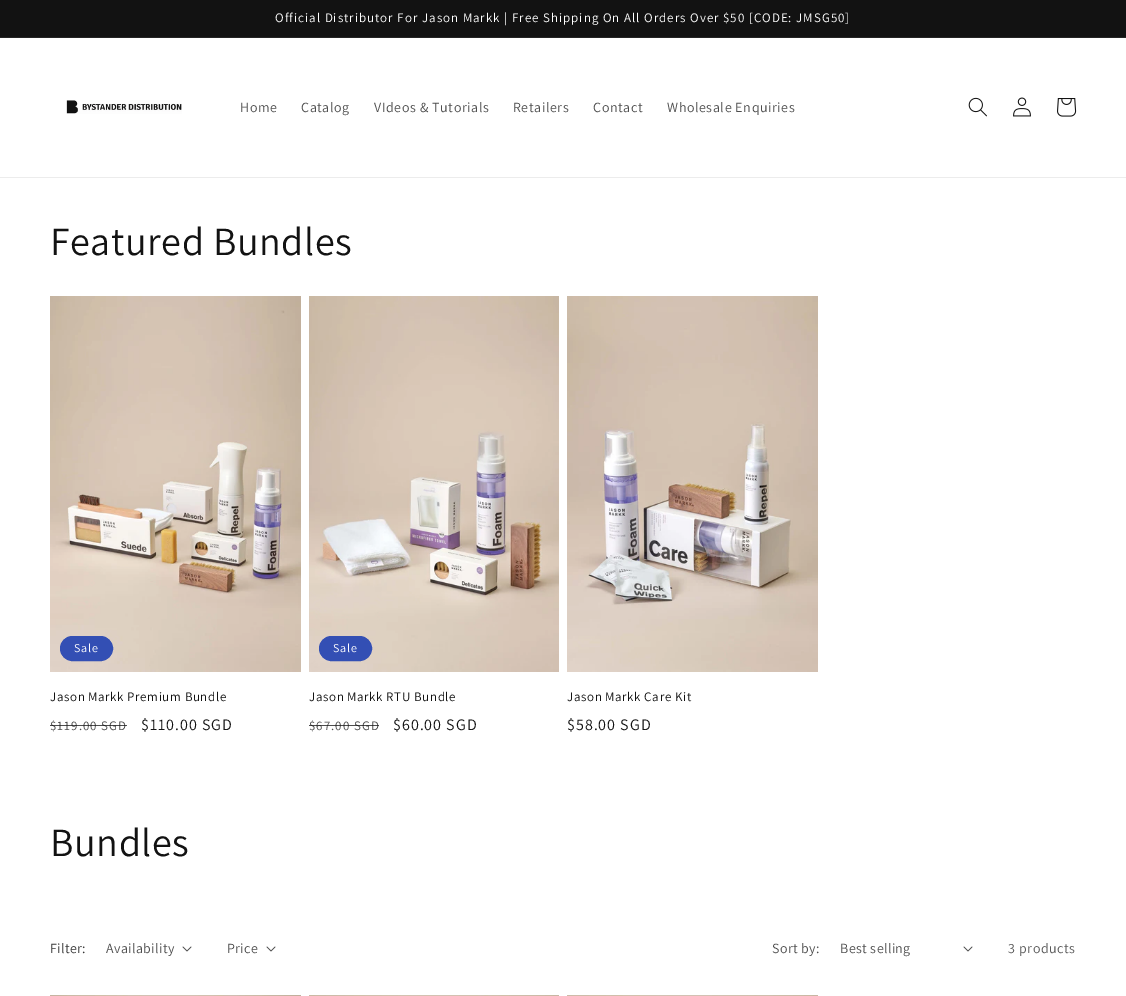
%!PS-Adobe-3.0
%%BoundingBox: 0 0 1126 996
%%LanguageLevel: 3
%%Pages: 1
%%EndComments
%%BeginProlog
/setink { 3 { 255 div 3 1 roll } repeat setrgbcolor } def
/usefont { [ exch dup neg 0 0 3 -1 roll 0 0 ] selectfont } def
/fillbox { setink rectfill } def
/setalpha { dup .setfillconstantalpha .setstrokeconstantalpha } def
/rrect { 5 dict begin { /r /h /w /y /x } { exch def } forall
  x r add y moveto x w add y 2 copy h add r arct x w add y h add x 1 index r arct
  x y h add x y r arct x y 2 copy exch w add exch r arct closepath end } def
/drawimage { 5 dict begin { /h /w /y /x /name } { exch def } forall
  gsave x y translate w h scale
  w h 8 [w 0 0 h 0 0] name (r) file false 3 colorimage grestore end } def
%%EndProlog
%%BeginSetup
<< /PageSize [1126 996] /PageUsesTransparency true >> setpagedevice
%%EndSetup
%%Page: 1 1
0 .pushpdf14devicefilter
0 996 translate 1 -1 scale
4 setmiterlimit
0 0 1126 996 255 255 255 fillbox
0 0 1126 37 18 18 18 fillbox
0 37 1126 1 37 37 37 fillbox
/Assistant-Regular 13 usefont
255 255 255 setink
275 22 moveto 1 0 (Official Distributor For Jason Markk | Free Shipping On All Orders Over $50 [CODE: JMSG50]) ashow
0 177 1126 1 236 236 236 fillbox
(assets/img1.rgb) 66 100 116 14 drawimage
/Assistant-Regular 14 usefont
77 77 77 setink
240 112 moveto 0.6 0 (Home) ashow
301 112 moveto 0.6 0 (Catalog) ashow
374 112 moveto 0.6 0 (VIdeos & Tutorials) ashow
513 112 moveto 0.6 0 (Retailers) ashow
593 112 moveto 0.6 0 (Contact) ashow
667 112 moveto 0.6 0 (Wholesale Enquiries) ashow
(assets/img2.rgb) 968 97 19 20 drawimage
(assets/img3.rgb) 1013 97 18 20 drawimage
(assets/img4.rgb) 1057 98 20 19 drawimage
/Assistant-Regular 40 usefont
18 18 18 setink
50 255 moveto 0.6 0 (Featured Bundles) ashow
(assets/img5.rgb) 50 296 251 376 drawimage
51 79 180 setink
60.5 636.5 52 24 12 rrect gsave fill grestore
stroke
/Assistant-Regular 12 usefont
255 255 255 setink
74 652 moveto 1 0 (Sale) ashow
/Assistant-Regular 13 usefont
18 18 18 setink
50 701 moveto 0.6 0 (Jason Markk Premium Bundle) ashow
77 77 77 setink
50 730 moveto 1 0 ($119.00 SGD) ashow
0.75 setalpha
50 725 77 1 18 18 18 fillbox
/Assistant-Regular 16 usefont
1 setalpha
141 730 moveto 1 0 ($110.00 SGD) ashow
(assets/img6.rgb) 309 296 250 376 drawimage
51 79 180 setink
319.5 636.5 52 24 12 rrect gsave fill grestore
stroke
/Assistant-Regular 12 usefont
255 255 255 setink
333 652 moveto 1 0 (Sale) ashow
/Assistant-Regular 13 usefont
18 18 18 setink
309 701 moveto 0.6 0 (Jason Markk RTU Bundle) ashow
77 77 77 setink
309 730 moveto 1 0 ($67.00 SGD) ashow
0.75 setalpha
309 725 70 1 18 18 18 fillbox
/Assistant-Regular 16 usefont
1 setalpha
393 730 moveto 1 0 ($60.00 SGD) ashow
(assets/img7.rgb) 567 296 251 376 drawimage
/Assistant-Regular 13 usefont
567 701 moveto 0.6 0 (Jason Markk Care Kit) ashow
/Assistant-Regular 16 usefont
567 730 moveto 1 0 ($58.00 SGD) ashow
/Assistant-Regular 40 usefont
50 856 moveto 0.6 0 (Bundles) ashow
/Assistant-Regular 14 usefont
54 54 54 setink
50 953 moveto 0.4 0 (Filter:) ashow
77 77 77 setink
106 953 moveto 0.4 0 (Availability) ashow
(assets/img8.rgb) 182 946 10 6 drawimage
227 953 moveto 0.4 0 (Price) ashow
(assets/img8.rgb) 266 946 10 6 drawimage
772 953 moveto 0.4 0 (Sort by:) ashow
840 953 moveto 0.4 0 (Best selling) ashow
(assets/img8.rgb) 963 946 10 6 drawimage
89 89 89 setink
1008 953 moveto 0.6 0 (3 products) ashow
(assets/img9.rgb) 50 995 251 1 drawimage
(assets/img10.rgb) 309 995 250 1 drawimage
(assets/img11.rgb) 567 995 251 1 drawimage
.poppdf14devicefilter showpage
%%EOF
